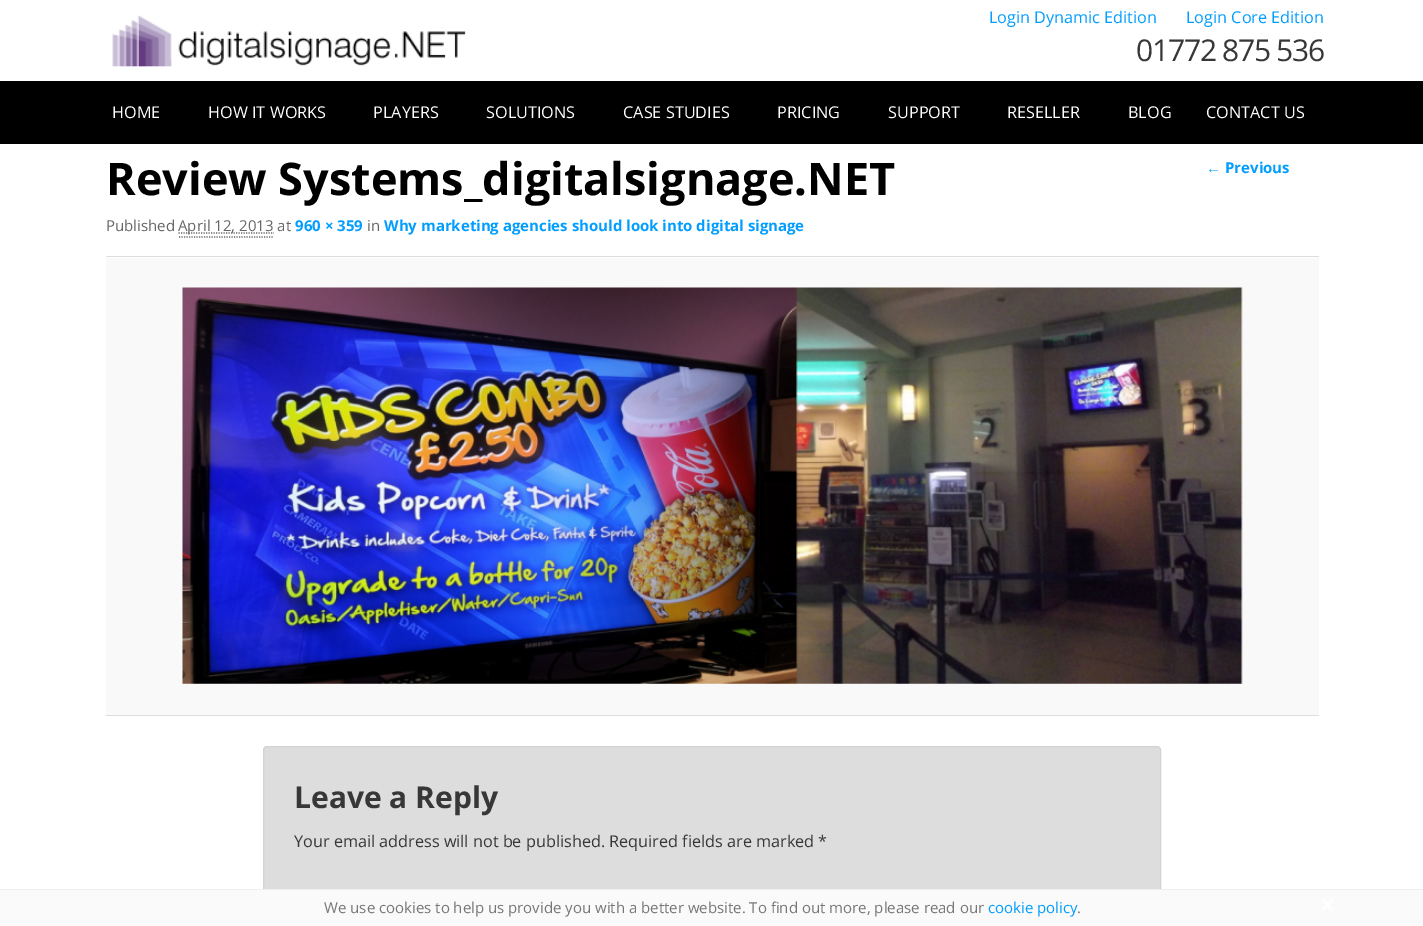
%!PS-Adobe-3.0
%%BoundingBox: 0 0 1423 926
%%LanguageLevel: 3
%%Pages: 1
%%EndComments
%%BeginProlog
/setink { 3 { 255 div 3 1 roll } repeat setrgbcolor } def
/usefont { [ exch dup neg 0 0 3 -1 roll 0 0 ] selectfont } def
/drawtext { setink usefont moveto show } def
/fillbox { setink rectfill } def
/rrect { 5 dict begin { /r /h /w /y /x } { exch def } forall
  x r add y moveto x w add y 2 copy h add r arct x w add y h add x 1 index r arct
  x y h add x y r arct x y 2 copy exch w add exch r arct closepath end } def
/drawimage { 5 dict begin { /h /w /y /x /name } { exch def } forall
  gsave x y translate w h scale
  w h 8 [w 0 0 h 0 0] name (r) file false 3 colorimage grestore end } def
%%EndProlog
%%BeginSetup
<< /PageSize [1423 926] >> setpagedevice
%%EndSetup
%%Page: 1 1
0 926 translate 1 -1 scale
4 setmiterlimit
0 0 1423 926 255 255 255 fillbox
(assets/img1.rgb) 112 15 354 52 drawimage
(Login Dynamic Edition) 989 23 /OpenSans-Regular 16.25 1 157 255 drawtext
(Login Core Edition) 1186 23 /OpenSans-Regular 16.25 1 157 255 drawtext
/OpenSans-Regular 30 usefont
55 55 55 setink
1136 61 moveto -1.25 0 (01772 875 536) ashow
0 81 1423 63 0 0 0 fillbox
(HOME) 112 118 /OpenSans-Regular 16.25 255 255 255 drawtext
(HOW IT WORKS) 208 118 /OpenSans-Regular 16.25 255 255 255 drawtext
(PLAYERS) 373 118 /OpenSans-Regular 16.25 255 255 255 drawtext
(SOLUTIONS) 486 118 /OpenSans-Regular 16.25 255 255 255 drawtext
(CASE STUDIES) 623 118 /OpenSans-Regular 16.25 255 255 255 drawtext
(PRICING) 777 118 /OpenSans-Regular 16.25 255 255 255 drawtext
(SUPPORT) 888 118 /OpenSans-Regular 16.25 255 255 255 drawtext
(RESELLER) 1007 118 /OpenSans-Regular 16.25 255 255 255 drawtext
(BLOG) 1128 118 /OpenSans-Regular 16.25 255 255 255 drawtext
(CONTACT US) 1206 118 /OpenSans-Regular 16.25 255 255 255 drawtext
(Review Systems_digitalsignage.NET) 106 195 /OpenSans-Bold 45 0 0 0 drawtext
(Published) 106 231 /OpenSans-Regular 15 102 102 102 drawtext
1.2 setlinewidth
[1.25 1.25] 0 setdash
178.5 233 moveto 274 233 lineto stroke
(April 12, 2013 at) 178 231 /OpenSans-Regular 15 102 102 102 drawtext
179 237 moveto 274 237 lineto stroke
(960 × 359) 295 231 /OpenSans-Bold 15 1 157 255 drawtext
(in) 367 231 /OpenSans-Regular 15 102 102 102 drawtext
(Why marketing agencies should look into digital signage) 384 231 /OpenSans-Bold 15 1 157 255 drawtext
106 258 1213 457 249 249 249 fillbox
106 256 1213 1 221 221 221 fillbox
106 715 1213 1 221 221 221 fillbox
(assets/img2.rgb) 182 287 1061 397 drawimage
(←) 1206 173 /LiberationSans-Bold 15 1 157 255 drawtext
(Previous) 1225 173 /OpenSans-Bold 15 1 157 255 drawtext
221 221 221 setink
263.5 746.5 897 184 3.5 rrect gsave fill grestore
211 211 211 setink
1 setlinewidth
[] 0 setdash
stroke
(Leave a Reply) 294 808 /OpenSans-Bold 30 55 55 55 drawtext
(Your email address will not be published. Required fields are marked *) 294 847 /OpenSans-Regular 16.25 55 55 55 drawtext
0 890 1423 36 250 250 250 fillbox
0 889 1423 1 238 238 238 fillbox
(We use cookies to help us provide you with a better website. To find out more, please read our) 324 913 /OpenSans-Regular 15 119 119 119 drawtext
(cookie policy) 988 913 /OpenSans-Regular 15 1 157 255 drawtext
(.) 1077 913 /OpenSans-Regular 15 119 119 119 drawtext
(assets/img3.rgb) 1322 899 11 12 drawimage
showpage
%%EOF
